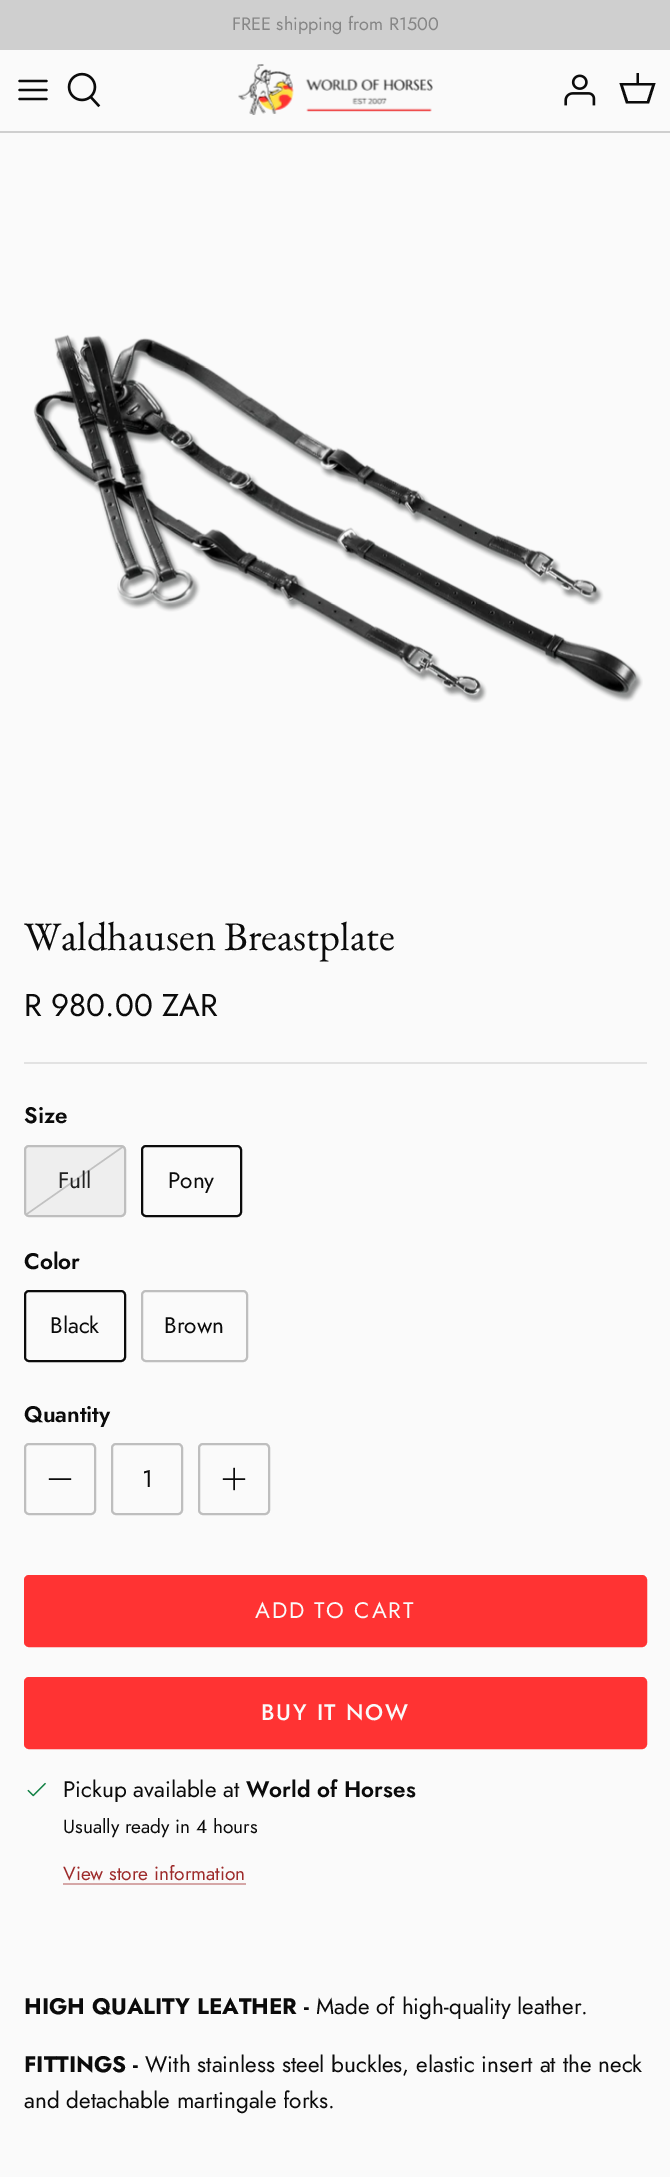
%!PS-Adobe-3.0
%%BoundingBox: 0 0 670 2177
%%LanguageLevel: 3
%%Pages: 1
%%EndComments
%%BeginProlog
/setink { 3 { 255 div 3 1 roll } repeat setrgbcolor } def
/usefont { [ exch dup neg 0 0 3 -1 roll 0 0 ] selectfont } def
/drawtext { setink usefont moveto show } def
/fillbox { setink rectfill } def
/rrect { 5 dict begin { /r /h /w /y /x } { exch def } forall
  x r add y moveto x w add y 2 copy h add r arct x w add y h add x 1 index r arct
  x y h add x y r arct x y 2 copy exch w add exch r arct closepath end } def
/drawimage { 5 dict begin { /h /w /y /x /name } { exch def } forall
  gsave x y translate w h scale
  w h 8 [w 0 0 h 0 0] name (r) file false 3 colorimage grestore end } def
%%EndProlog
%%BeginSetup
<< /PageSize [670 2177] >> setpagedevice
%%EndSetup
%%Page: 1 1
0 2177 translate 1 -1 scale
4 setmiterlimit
0 0 670 2177 250 250 250 fillbox
0 0 670 50 207 207 207 fillbox
(FREE shipping from R1500) 232 30 /Jost-Regular 18 134 134 134 drawtext
0 131 670 2 207 207 207 fillbox
11 11 11 setink
2.2 setlinewidth
1 setlinecap
1 setlinejoin
19.5 90 moveto 46.5 90 lineto 19.5 81 moveto 46.5 81 lineto 19.5 99 moveto 46.5 99 lineto stroke
(assets/img1.rgb) 67 72 34 36 drawimage
(assets/img2.rgb) 238 64 195 51 drawimage
(assets/img3.rgb) 564 74 32 32 drawimage
636.5 83 moveto 636.5 73 lineto 639 73 lineto 639 83 lineto 655.5 83 lineto 649 103.5 lineto 626 103.5 lineto 619.5 83 lineto closepath 623 85.5 moveto 628 101 lineto 647 101 lineto 652 85.5 lineto closepath fill
(assets/img4.rgb) 33 334 610 369 drawimage
(Waldhausen Breastplate) 24 950 /EBGaramond-Regular 40.5 11 11 11 drawtext
(R 980.00 ZAR) 24 1016 /Jost-Regular 31.5 11 11 11 drawtext
24 1062 623 2 226 226 226 fillbox
(Size) 24 1123 /Jost-SemiBold 22.5 11 11 11 drawtext
238 238 238 setink
24 1145 102 72 5 rrect fill
gsave
26 1146 99 69 rectclip
193 193 193 setink
1.4 setlinewidth
0 setlinecap
0 setlinejoin
124 1146 moveto 25.5 1215 lineto stroke
grestore
190 190 190 setink
2 setlinewidth
0 setlinecap
0 setlinejoin
25 1146 100 70 4 rrect stroke
(Full) 58 1188 /Jost-Regular 22.5 33 33 33 drawtext
11 11 11 setink
142 1146 99 70 4 rrect stroke
(Pony) 168 1188 /Jost-Regular 22.5 11 11 11 drawtext
(Color) 24 1269 /Jost-SemiBold 22.5 11 11 11 drawtext
25 1291 100 70 4 rrect stroke
(Black) 50 1333 /Jost-Regular 22.5 11 11 11 drawtext
190 190 190 setink
142 1291 105 70 4 rrect stroke
(Brown) 164 1333 /Jost-Regular 22.5 11 11 11 drawtext
(Quantity) 24 1422 /Jost-SemiBold 22.5 11 11 11 drawtext
190 190 190 setink
25 1444 70 70 4 rrect stroke
11 11 11 setink
1.5 setlinewidth
1 setlinecap
1 setlinejoin
49.5 1479 moveto 70.5 1479 lineto stroke
190 190 190 setink
2 setlinewidth
0 setlinecap
0 setlinejoin
112 1444 70 70 4 rrect stroke
(1) 142 1487 /Jost-Regular 24 11 11 11 drawtext
190 190 190 setink
199 1444 70 70 4 rrect stroke
11 11 11 setink
1.5 setlinewidth
1 setlinecap
1 setlinejoin
234 1468.5 moveto 234 1489.5 lineto 223.5 1479 moveto 244.5 1479 lineto stroke
255 51 51 setink
25 1576 621 70 4 rrect gsave fill grestore
2 setlinewidth
0 setlinecap
0 setlinejoin
stroke
/Jost-Regular 22.5 usefont
250 250 250 setink
255 1618 moveto 1.75 0 (ADD TO CART) ashow
255 51 51 setink
25 1678 621 70 4 rrect gsave fill grestore
stroke
/Jost-Medium 22.5 usefont
250 250 250 setink
261 1720 moveto 1.75 0 (BUY IT NOW) ashow
(assets/img5.rgb) 27 1782 19 15 drawimage
(Pickup available at) 63 1797 /Jost-Regular 22.5 11 11 11 drawtext
(World of Horses) 246 1797 /Jost-SemiBold 22.5 11 11 11 drawtext
(Usually ready in 4 hours) 63 1833 /Jost-Regular 19.1 11 11 11 drawtext
(View store information) 63 1880 /Jost-Regular 19.1 157 42 42 drawtext
63 1883 183 2 213 167 167 fillbox
(HIGH QUALITY LEATHER -) 24 2014 /Jost-Bold 22.5 11 11 11 drawtext
(Made of high-quality leather.) 316 2014 /Jost-Regular 22.5 11 11 11 drawtext
(FITTINGS -) 24 2072 /Jost-Bold 22.5 11 11 11 drawtext
(With stainless steel buckles, elastic insert at the neck) 145 2072 /Jost-Regular 22.5 11 11 11 drawtext
(and detachable martingale forks.) 24 2108 /Jost-Regular 22.5 11 11 11 drawtext
showpage
%%EOF
